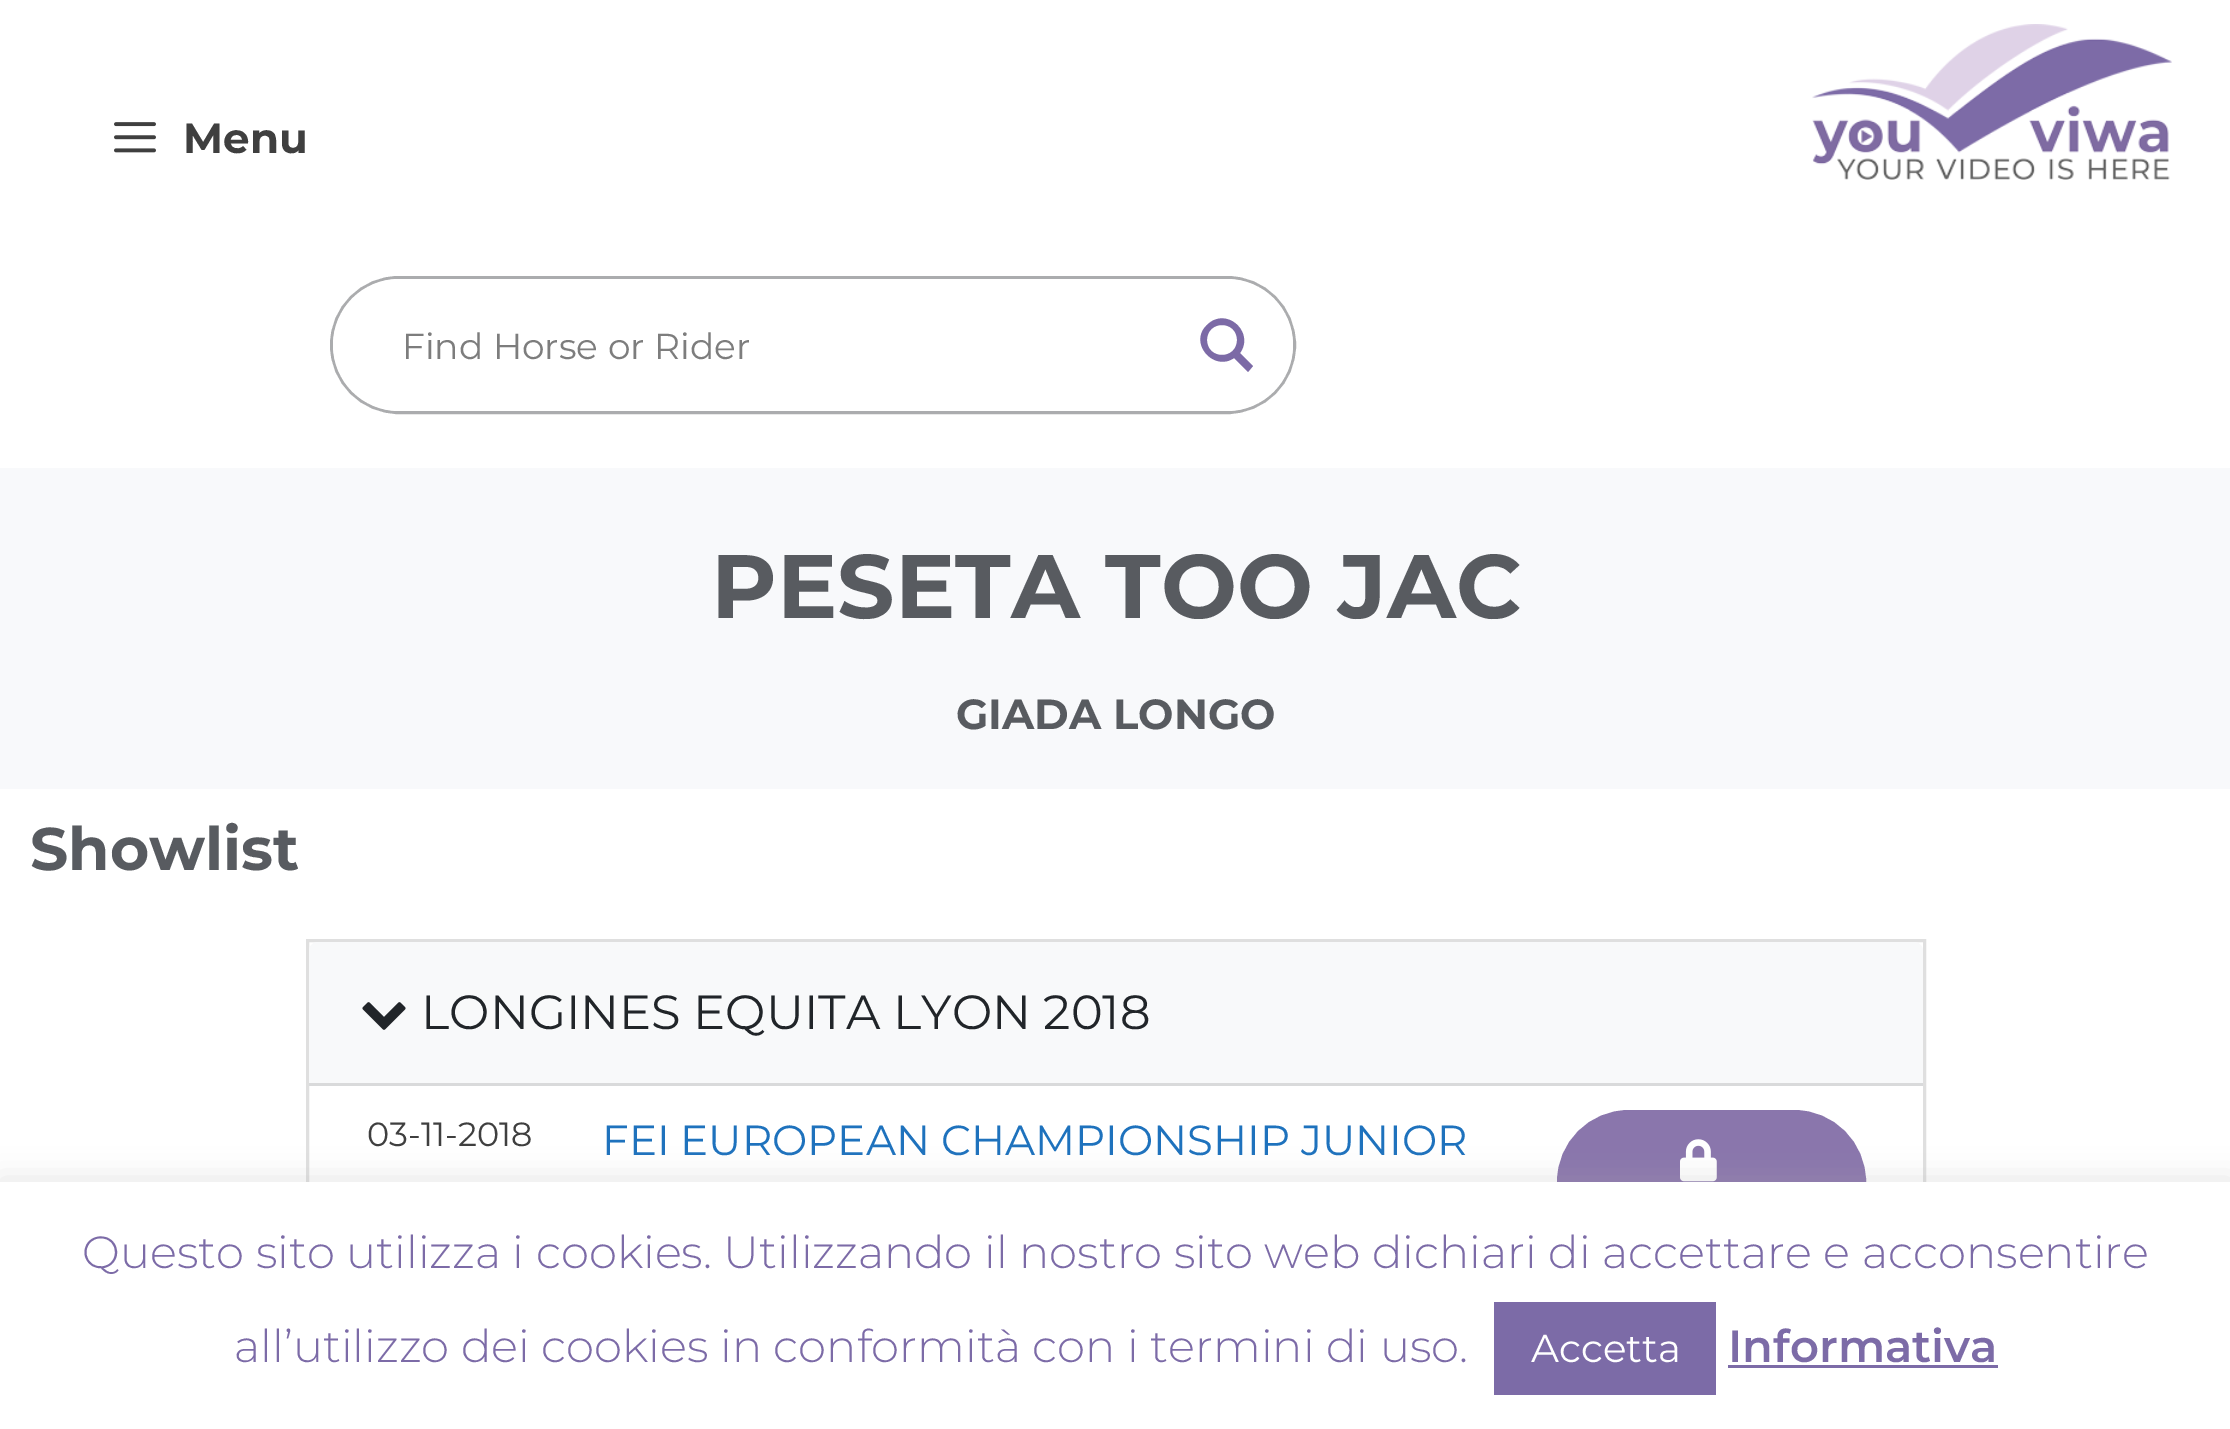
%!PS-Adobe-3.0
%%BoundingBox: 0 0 2230 1429
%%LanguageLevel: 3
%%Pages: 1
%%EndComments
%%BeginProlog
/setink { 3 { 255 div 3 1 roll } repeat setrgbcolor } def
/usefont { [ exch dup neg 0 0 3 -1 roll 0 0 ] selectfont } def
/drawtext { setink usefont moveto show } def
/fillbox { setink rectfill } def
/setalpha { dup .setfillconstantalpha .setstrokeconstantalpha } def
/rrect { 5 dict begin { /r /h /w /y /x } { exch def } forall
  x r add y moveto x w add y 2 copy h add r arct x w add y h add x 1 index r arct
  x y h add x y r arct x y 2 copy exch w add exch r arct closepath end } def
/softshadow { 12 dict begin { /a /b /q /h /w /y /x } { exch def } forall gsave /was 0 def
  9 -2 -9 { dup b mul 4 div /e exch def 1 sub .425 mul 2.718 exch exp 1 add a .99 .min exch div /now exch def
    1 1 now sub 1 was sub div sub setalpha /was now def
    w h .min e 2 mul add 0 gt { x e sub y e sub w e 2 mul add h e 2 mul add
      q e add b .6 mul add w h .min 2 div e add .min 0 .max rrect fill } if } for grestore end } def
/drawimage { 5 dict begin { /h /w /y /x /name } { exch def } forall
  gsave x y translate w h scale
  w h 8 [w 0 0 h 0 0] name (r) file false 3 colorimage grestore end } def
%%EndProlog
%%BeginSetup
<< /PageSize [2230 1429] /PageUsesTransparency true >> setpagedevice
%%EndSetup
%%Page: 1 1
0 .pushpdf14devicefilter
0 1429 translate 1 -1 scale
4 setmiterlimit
0 0 2230 1429 255 255 255 fillbox
(assets/img1.rgb) 114 122 42 31 drawimage
(Menu) 183 153 /Montserrat-Bold 42 63 63 63 drawtext
(assets/img2.rgb) 1812 24 360 156 drawimage
171 172 174 setink
3 setlinewidth
331.5 277.5 963 135 67.5 rrect stroke
255 255 255 setink
333 279 960 132 66 rrect fill
(Find Horse or Rider) 402 359 /Montserrat-Regular 36 125 125 125 drawtext
124 106 166 setink
1253 366 moveto 1240 353 lineto 1255 332 1226 306 1207 325 curveto 1188 343 1214 372 1234 358 curveto 1248 372 lineto closepath 1207 340 moveto 1207 320 1237 320 1237 340 curveto 1237 360 1207 360 1207 340 curveto closepath fill
0 468 2230 321 248 249 251 fillbox
(PESETA TOO JAC) 711 618 /Montserrat-Bold 90 88 91 96 drawtext
(GIADA LONGO) 956 729 /Montserrat-Bold 42 88 91 96 drawtext
(Showlist) 30 870 /Montserrat-Bold 60 88 91 96 drawtext
223 223 223 setink
307.5 940.5 1617 468 rectstroke
248 249 250 setink
318 942 moveto 1914 942 lineto 1919 942 1923 946 1923 951 curveto 1923 1086 lineto 309 1086 lineto 309 951 lineto 309 946 313 942 318 942 curveto closepath fill
309 1083 1614 3 217 218 219 fillbox
(assets/img3.rgb) 362 1002 44 28 drawimage
(LONGINES EQUITA LYON 2018) 421 1029 /Montserrat-Regular 48 33 37 41 drawtext
(03-11-2018) 367 1146 /Montserrat-Regular 33.5 63 63 63 drawtext
(FEI EUROPEAN CHAMPIONSHIP JUNIOR) 602 1155 /Montserrat-Regular 42 30 114 189 drawtext
138 118 172 setink
1560 1113 303 138 69 rrect gsave fill grestore
6 setlinewidth
stroke
(assets/img4.rgb) 1680 1139 37 43 drawimage
172 171 171 setink
0 1179 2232 249 0 15 0.3 softshadow
0 1182 2230 247 255 255 255 fillbox
(Questo sito utilizza i cookies. Utilizzando il nostro sito web dichiari di accettare e acconsentire) 82 1268 /Montserrat-Light 45 124 107 167 drawtext
(all’utilizzo dei cookies in conformità con i termini di uso.) 234 1362 /Montserrat-Light 45 124 107 167 drawtext
1494 1302 222 93 124 107 167 fillbox
(Accetta) 1531 1362 /Montserrat-Regular 39 255 255 255 drawtext
(Informativa) 1728 1362 /Montserrat-SemiBold 45 124 107 167 drawtext
1728 1365 270 3 124 107 167 fillbox
.poppdf14devicefilter showpage
%%EOF
